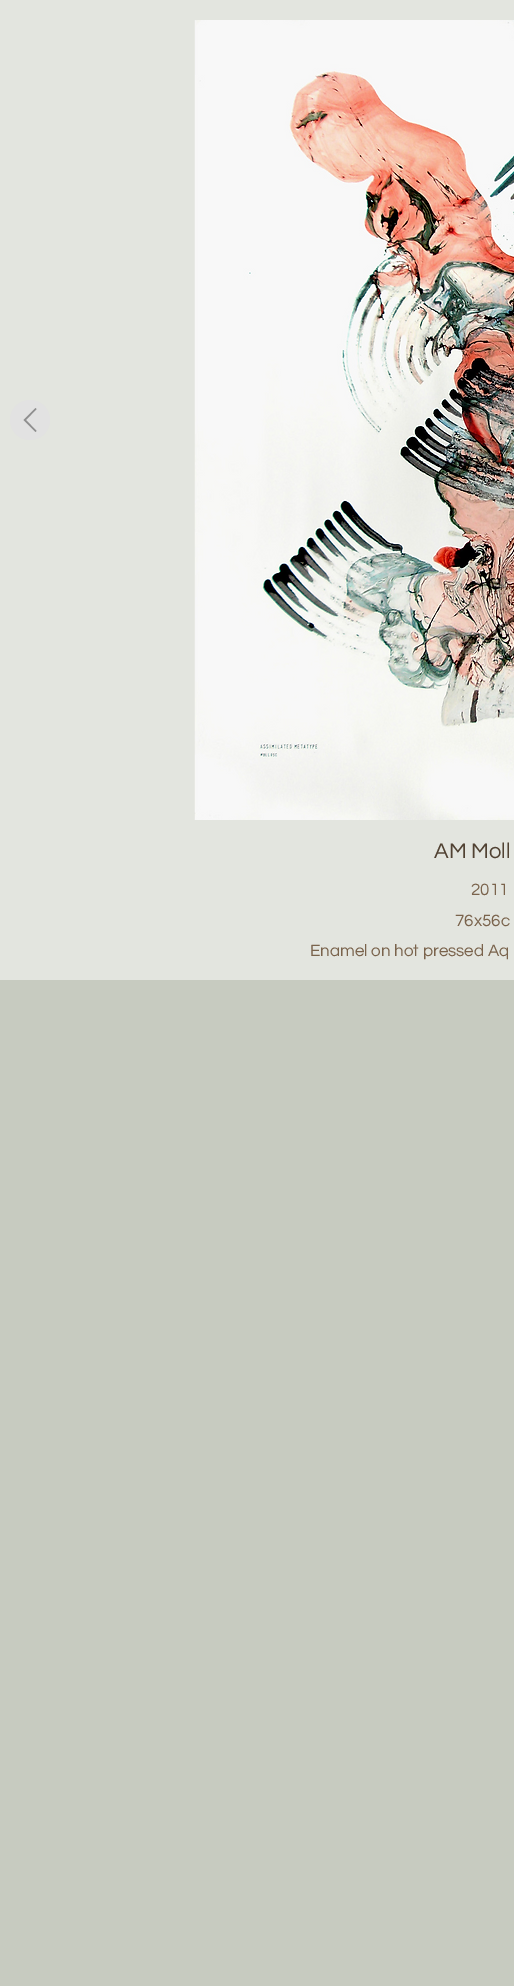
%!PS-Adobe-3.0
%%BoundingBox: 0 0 514 1986
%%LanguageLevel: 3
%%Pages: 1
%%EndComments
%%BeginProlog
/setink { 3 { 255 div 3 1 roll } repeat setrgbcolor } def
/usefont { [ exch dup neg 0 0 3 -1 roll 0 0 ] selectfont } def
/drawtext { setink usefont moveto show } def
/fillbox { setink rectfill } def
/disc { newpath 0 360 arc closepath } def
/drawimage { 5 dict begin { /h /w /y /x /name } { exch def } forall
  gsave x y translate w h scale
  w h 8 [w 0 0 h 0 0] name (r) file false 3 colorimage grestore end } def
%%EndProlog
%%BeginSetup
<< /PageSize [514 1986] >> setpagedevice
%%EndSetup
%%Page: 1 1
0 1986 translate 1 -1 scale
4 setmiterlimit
0 0 514 1986 199 203 192 fillbox
0 0 514 980 227 229 223 fillbox
226 226 226 setink
30 420 20 disc fill
143 143 143 setink
35.5 432 moveto 36.5 431 lineto 26 420 lineto 36.5 409 lineto 35.5 408 lineto 23.5 420 lineto closepath fill
(assets/img1.rgb) 194 20 320 800 drawimage
(AM Moll) 434 858 /Questrial-Regular 22 81 66 51 drawtext
(2011) 471 895 /Questrial-Regular 17 122 99 76 drawtext
(76x56c) 455 926 /Questrial-Regular 17 122 99 76 drawtext
(Enamel on hot pressed Aq) 310 956 /Questrial-Regular 17 122 99 76 drawtext
showpage
%%EOF
